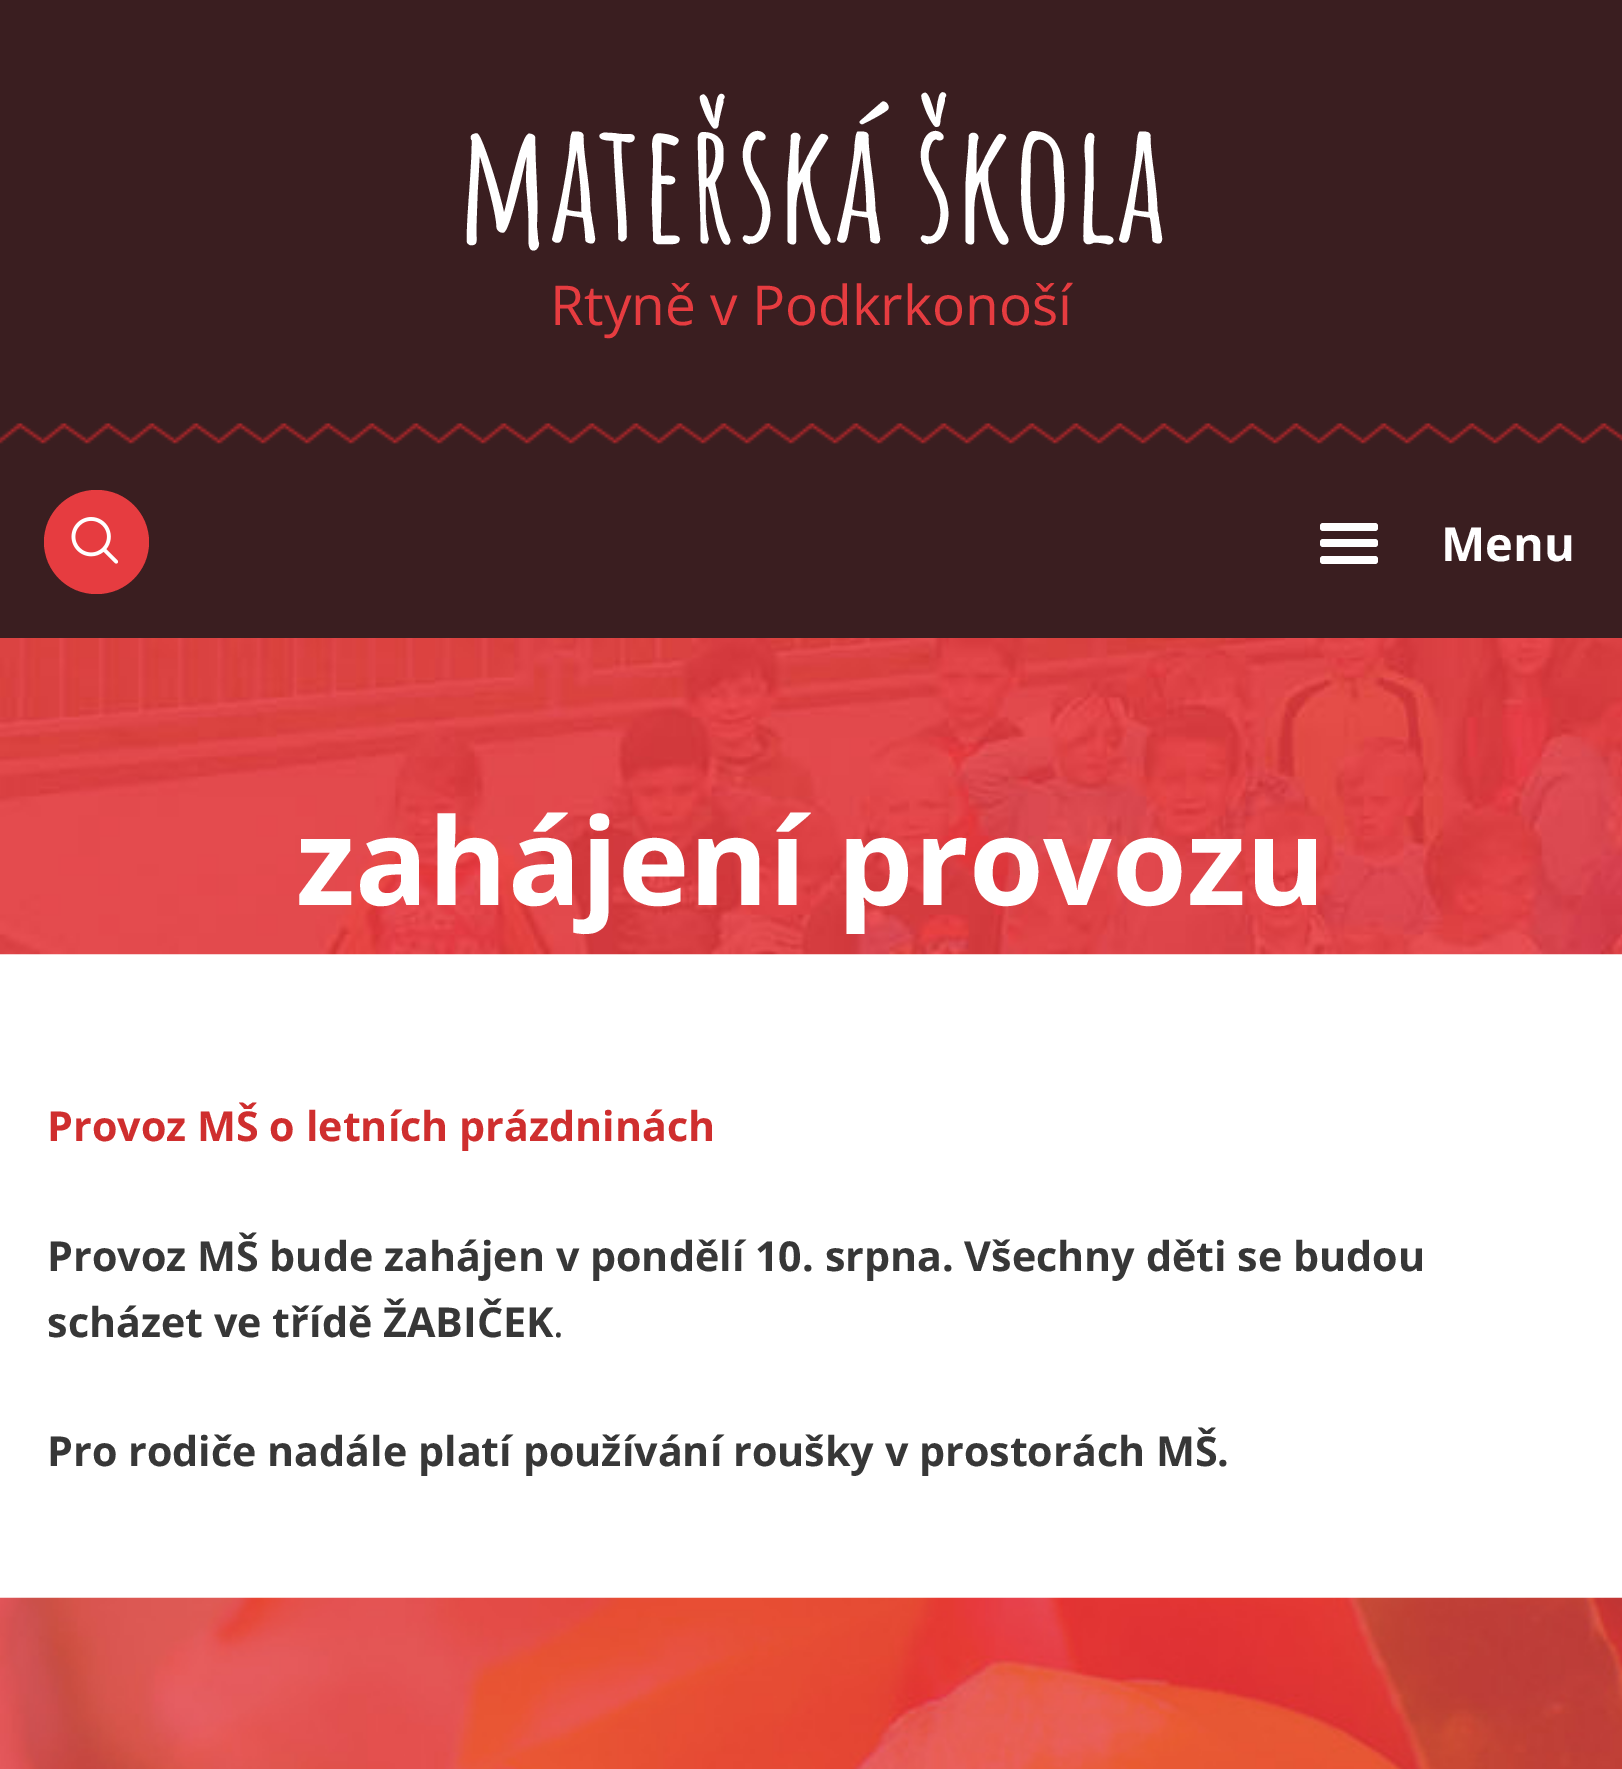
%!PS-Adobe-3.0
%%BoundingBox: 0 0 1622 1769
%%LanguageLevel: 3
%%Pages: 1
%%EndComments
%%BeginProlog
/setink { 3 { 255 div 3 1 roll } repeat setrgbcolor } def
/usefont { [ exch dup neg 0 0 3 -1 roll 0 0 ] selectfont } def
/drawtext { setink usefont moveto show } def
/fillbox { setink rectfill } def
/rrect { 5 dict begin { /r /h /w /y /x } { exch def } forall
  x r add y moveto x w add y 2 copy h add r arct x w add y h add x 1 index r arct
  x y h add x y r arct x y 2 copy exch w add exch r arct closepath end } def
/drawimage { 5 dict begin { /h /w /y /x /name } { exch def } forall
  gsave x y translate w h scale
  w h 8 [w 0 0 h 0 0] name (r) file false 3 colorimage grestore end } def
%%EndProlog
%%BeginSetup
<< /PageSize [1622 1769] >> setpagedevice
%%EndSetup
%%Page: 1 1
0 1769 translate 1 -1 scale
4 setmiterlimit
0 0 1622 1769 255 255 255 fillbox
0 0 1622 638 58 30 32 fillbox
(mateřská škola) 457 242 /AmaticSC-Bold 165 255 255 255 drawtext
(Rtyně v Podkrkonoší) 550 325 /OpenSans-Regular 55 230 60 64 drawtext
(assets/img1.rgb) 0 423 1622 21 drawimage
44 490 105 104 52 rrect fill
(assets/img2.rgb) 71 517 47 47 drawimage
255 255 255 setink
1320 523 58 8 3 rrect fill
1320 539 58 8 3 rrect fill
1320 556 58 8 3 rrect fill
(Menu) 1441 561 /OpenSans-Bold 47 255 255 255 drawtext
(assets/img3.rgb) 0 638 1622 317 drawimage
(zahájení provozu) 296 905 /OpenSans-Bold 121 255 255 255 drawtext
(Provoz MŠ o letních prázdninách) 47 1141 /OpenSans-Bold 41.25 207 46 46 drawtext
(Provoz MŠ bude zahájen v pondělí 10. srpna. Všechny děti se budou) 47 1271 /OpenSans-Bold 41.25 55 55 55 drawtext
(scházet ve třídě ŽABIČEK) 47 1337 /OpenSans-Bold 41.25 55 55 55 drawtext
(.) 553 1337 /OpenSans-Regular 41.25 55 55 55 drawtext
(Pro rodiče nadále platí používání roušky v prostorách MŠ.) 47 1466 /OpenSans-Bold 41.25 55 55 55 drawtext
(assets/img4.rgb) 0 1597 1622 172 drawimage
showpage
%%EOF
